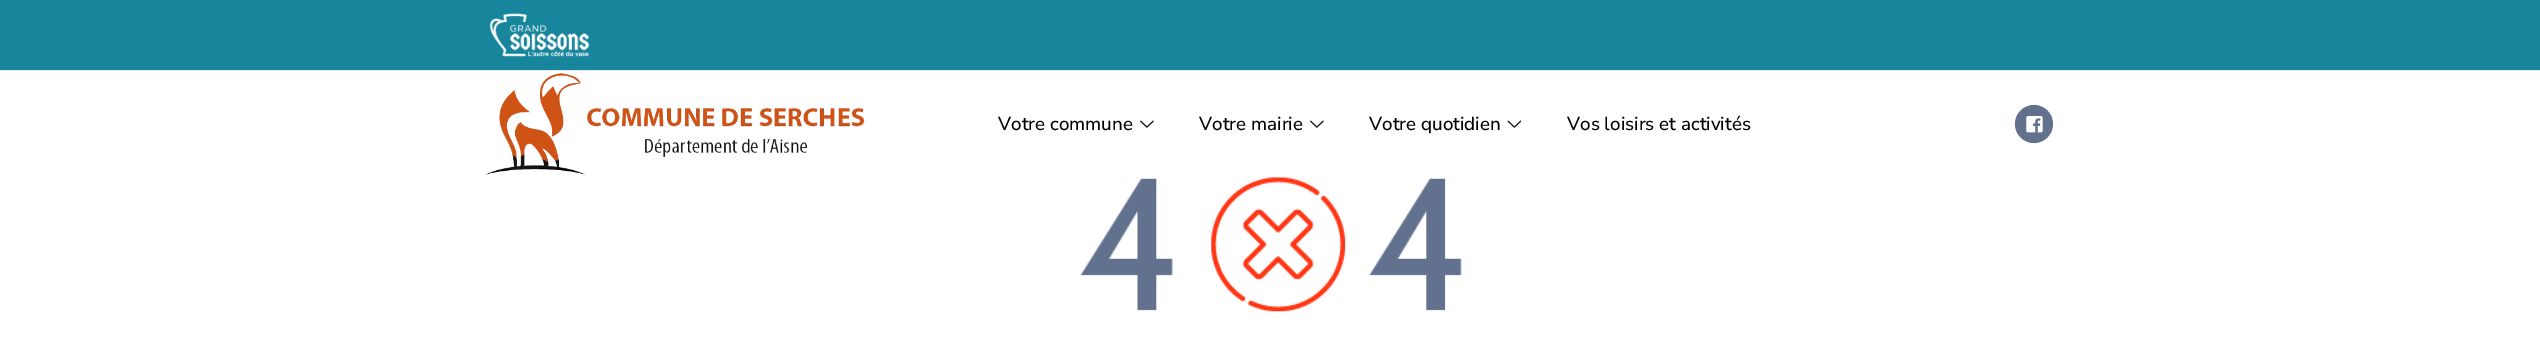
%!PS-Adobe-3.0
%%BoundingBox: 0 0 2540 363
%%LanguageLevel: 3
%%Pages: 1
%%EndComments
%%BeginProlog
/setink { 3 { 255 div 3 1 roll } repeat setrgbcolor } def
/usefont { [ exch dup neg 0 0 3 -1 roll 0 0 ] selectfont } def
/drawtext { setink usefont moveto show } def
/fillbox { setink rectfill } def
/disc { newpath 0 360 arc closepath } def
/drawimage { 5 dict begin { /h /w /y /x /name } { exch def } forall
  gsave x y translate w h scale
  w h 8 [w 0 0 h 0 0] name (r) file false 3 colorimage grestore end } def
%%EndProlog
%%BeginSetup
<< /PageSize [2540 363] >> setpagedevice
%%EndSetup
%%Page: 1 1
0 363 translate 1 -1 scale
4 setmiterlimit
0 0 2540 363 255 255 255 fillbox
0 0 2540 70 23 133 155 fillbox
0 70 2540 1 229 229 229 fillbox
(assets/img1.rgb) 489 13 101 44 drawimage
(assets/img2.rgb) 485 73 380 102 drawimage
(Votre commune) 998 130 /NunitoSans-Medium 18.75 0 0 0 drawtext
(assets/img3.rgb) 1140 120 14 8 drawimage
(Votre mairie) 1199 130 /NunitoSans-Medium 18.75 0 0 0 drawtext
(assets/img3.rgb) 1310 120 14 8 drawimage
(Votre quotidien) 1369 130 /NunitoSans-Medium 18.75 0 0 0 drawtext
(assets/img4.rgb) 1507 120 15 8 drawimage
(Vos loisirs et activités) 1567 130 /NunitoSans-Medium 18.75 0 0 0 drawtext
98 113 141 setink
2034 124 19 disc fill
(assets/img5.rgb) 2026 116 17 17 drawimage
(assets/img6.rgb) 1080 177 382 135 drawimage
showpage
%%EOF
